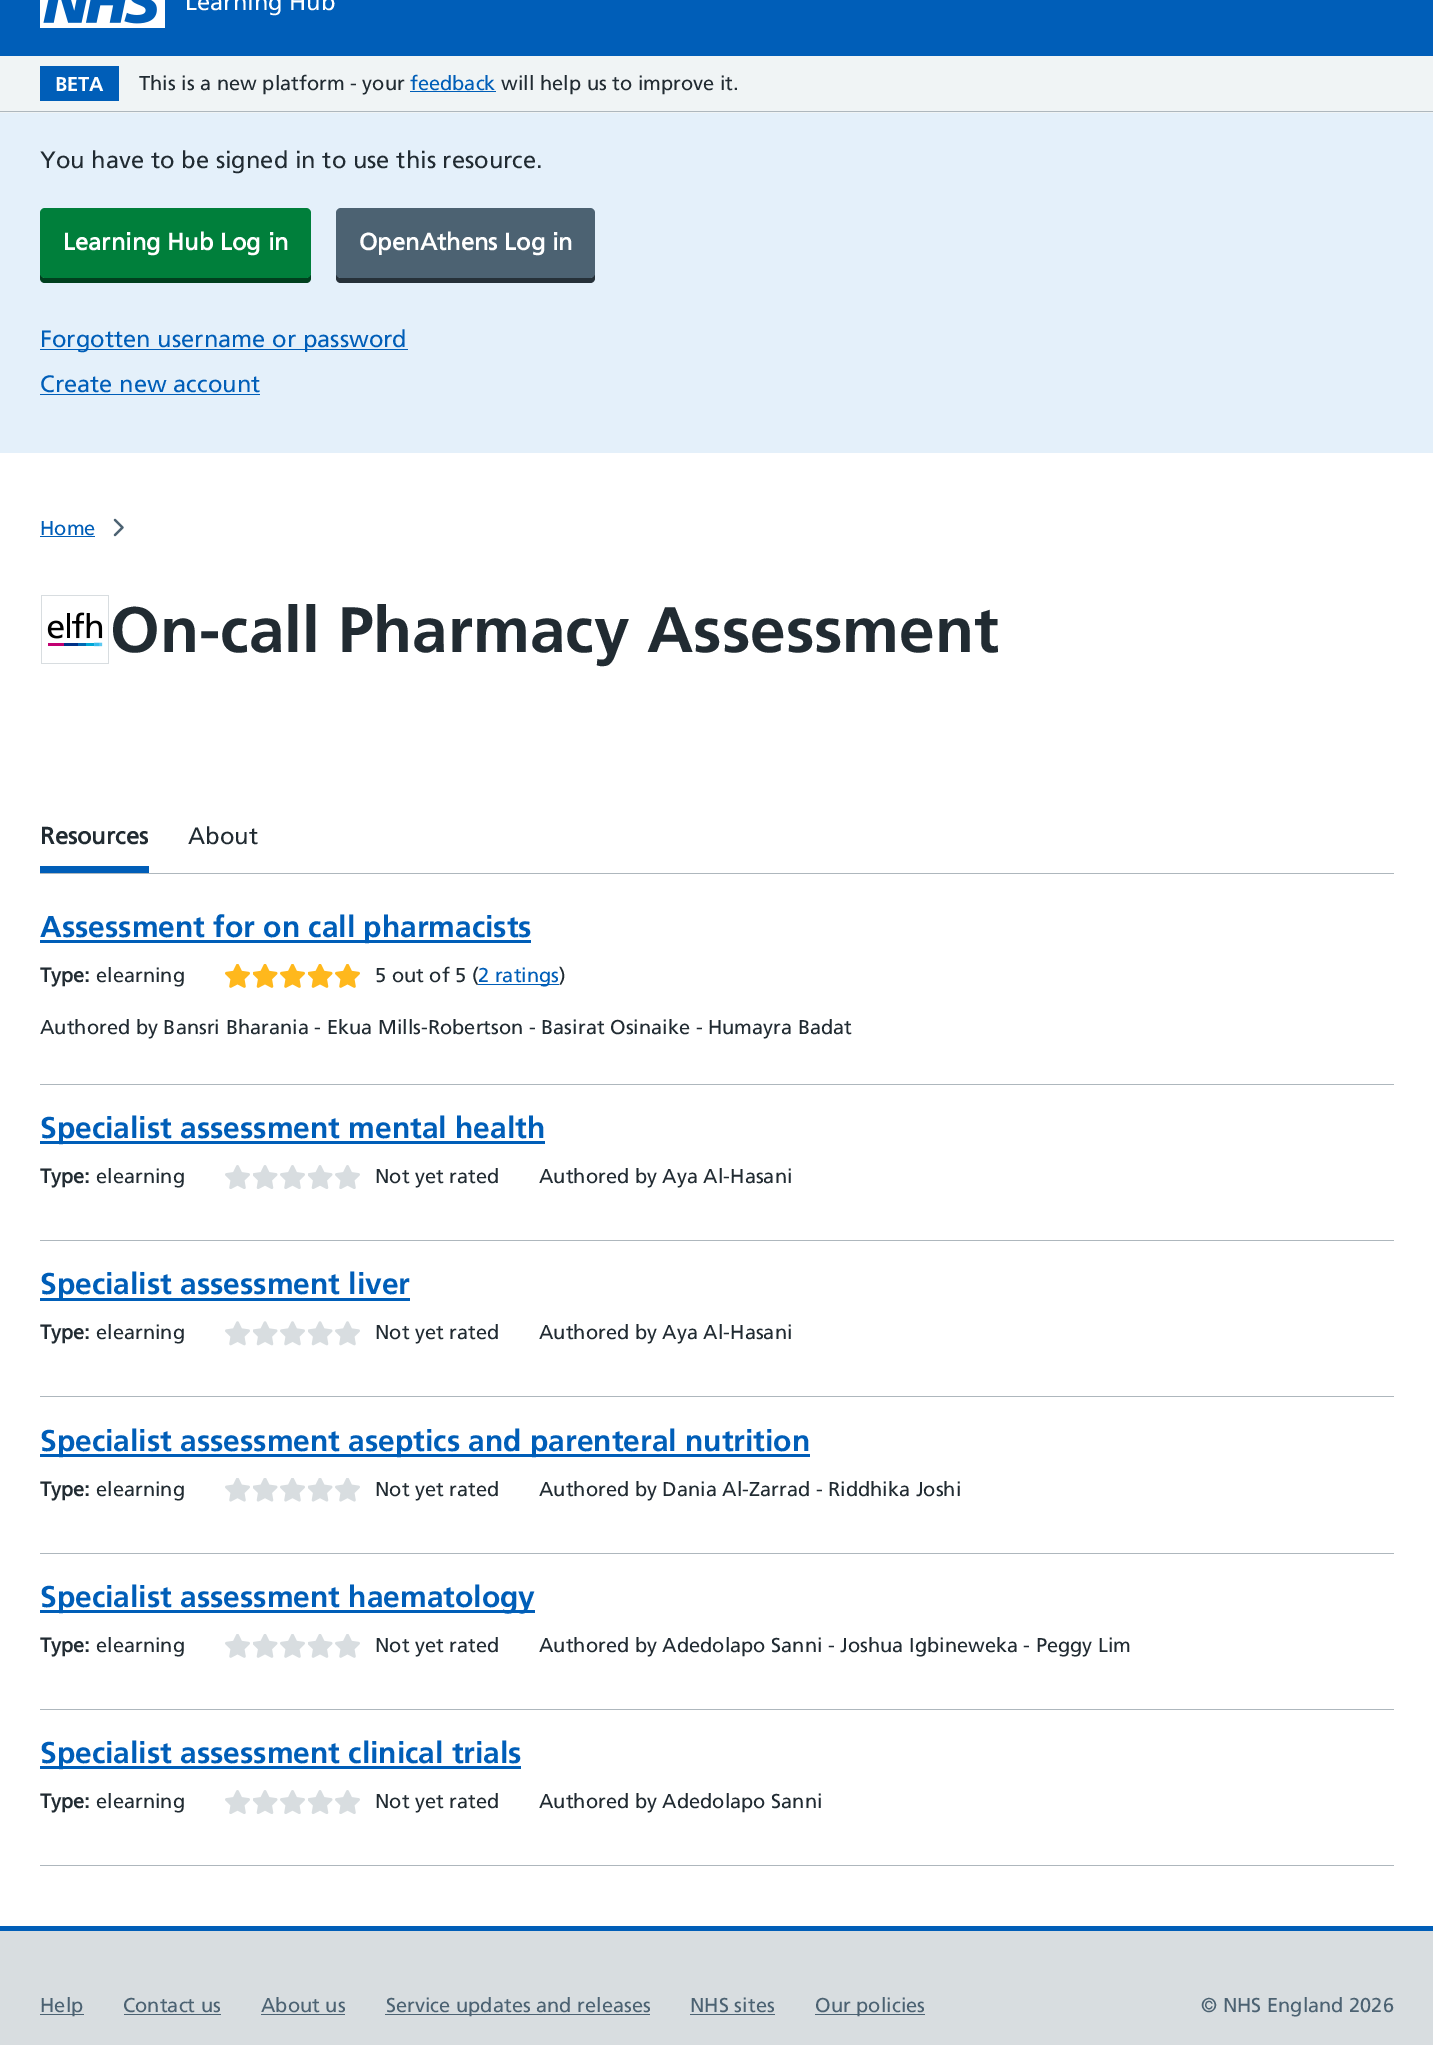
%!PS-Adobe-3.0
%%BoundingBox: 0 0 1433 2045
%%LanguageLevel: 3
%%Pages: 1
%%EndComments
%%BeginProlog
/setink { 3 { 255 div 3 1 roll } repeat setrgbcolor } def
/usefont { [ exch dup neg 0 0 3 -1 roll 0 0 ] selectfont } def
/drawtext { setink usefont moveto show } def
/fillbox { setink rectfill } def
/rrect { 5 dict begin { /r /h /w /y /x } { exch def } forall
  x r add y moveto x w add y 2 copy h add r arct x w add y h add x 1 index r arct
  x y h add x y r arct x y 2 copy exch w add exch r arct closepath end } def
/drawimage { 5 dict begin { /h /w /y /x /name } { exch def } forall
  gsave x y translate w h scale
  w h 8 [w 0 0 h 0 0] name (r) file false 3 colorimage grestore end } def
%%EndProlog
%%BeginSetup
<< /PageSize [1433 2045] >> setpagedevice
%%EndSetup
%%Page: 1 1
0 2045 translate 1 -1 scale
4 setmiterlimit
0 0 1433 2045 240 244 245 fillbox
0 0 1433 56 0 94 184 fillbox
(assets/img1.rgb) 40 0 125 28 drawimage
(Learning Hub) 185 10 /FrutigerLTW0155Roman-Regular 23.75 255 255 255 drawtext
40 66 79 35 0 94 184 fillbox
(BETA) 55 91 /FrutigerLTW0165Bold-Bold 20 255 255 255 drawtext
(This is a new platform - your) 139 90 /FrutigerLTW0155Roman-Regular 20 33 43 50 drawtext
(feedback) 410 90 /FrutigerLTW0155Roman-Regular 20 0 94 184 drawtext
410 91 86 1 0 94 184 fillbox
(will help us to improve it.) 501 90 /FrutigerLTW0155Roman-Regular 20 33 43 50 drawtext
0 111 1433 1 174 183 189 fillbox
0 453 1433 1473 255 255 255 fillbox
0 113 1433 340 228 240 250 fillbox
(You have to be signed in to use this resource.) 40 168 /FrutigerLTW0155Roman-Regular 23.75 33 43 50 drawtext
0 64 30 setink
40 272 moveto 40 278 lineto 40 281 42 283 45 283 curveto 306 283 lineto 309 283 311 281 311 278 curveto 311 274 lineto 310 276 308 278 306 278 curveto 45 278 lineto 42 278 40 275 40 272 curveto closepath fill
0 127 59 setink
40 208 271 70 5 rrect fill
(Learning Hub Log in) 63 250 /FrutigerLTW0155Roman-Bold 23.75 255 255 255 drawtext
38 49 57 setink
336 216 moveto 336 278 lineto 336 281 338 283 341 283 curveto 590 283 lineto 593 283 595 281 595 278 curveto 595 272 lineto 595 275 593 278 590 278 curveto 341 278 lineto 338 278 336 275 336 272 curveto closepath fill
76 98 114 setink
336 208 259 70 5 rrect fill
(OpenAthens Log in) 359 250 /FrutigerLTW0155Roman-Bold 23.75 255 255 255 drawtext
40 349 368 1 0 94 184 fillbox
(Forgotten username or password) 40 347 /FrutigerLTW0155Roman-Regular 23.75 0 94 184 drawtext
(Create new account) 40 392 /FrutigerLTW0155Roman-Regular 23.75 0 94 184 drawtext
40 394 220 1 0 94 184 fillbox
(Home) 40 535 /FrutigerLTW0155Roman-Regular 20 0 94 184 drawtext
40 536 55 1 0 94 184 fillbox
(assets/img2.rgb) 113 518 11 19 drawimage
(assets/img3.rgb) 41 595 68 69 drawimage
(On-call Pharmacy Assessment) 110 652 /FrutigerLTW0165Bold-Bold 64 33 43 50 drawtext
40 873 1354 1 174 183 189 fillbox
40 866 109 7 0 94 184 fillbox
(Resources) 40 844 /FrutigerLTW0155Roman-Bold 23.75 33 43 50 drawtext
(About) 188 844 /FrutigerLTW0155Roman-Regular 23.75 33 43 50 drawtext
40 1084 1354 1 174 183 189 fillbox
40 940 491 3 0 94 184 fillbox
(Assessment for on call pharmacists) 40 937 /FrutigerLTW0165Bold-Bold 30 0 94 184 drawtext
(Type:) 40 982 /FrutigerLTW0155Roman-Bold 20 33 43 50 drawtext
(elearning) 96 982 /FrutigerLTW0155Roman-Regular 20 33 43 50 drawtext
(assets/img4.rgb) 225 964 25 24 drawimage
(assets/img5.rgb) 253 964 25 24 drawimage
(assets/img4.rgb) 280 964 25 24 drawimage
(assets/img5.rgb) 308 964 25 24 drawimage
(assets/img4.rgb) 335 964 25 24 drawimage
(5 out of 5 \() 375 982 /FrutigerLTW0155Roman-Regular 20 33 43 50 drawtext
478 984 81 1 0 94 184 fillbox
(2 ratings) 478 982 /FrutigerLTW0155Roman-Regular 20 0 94 184 drawtext
(\)) 559 982 /FrutigerLTW0155Roman-Regular 20 33 43 50 drawtext
(Authored by Bansri Bharania - Ekua Mills-Robertson - Basirat Osinaike - Humayra Badat) 40 1034 /FrutigerLTW0155Roman-Regular 20 33 43 50 drawtext
40 1240 1354 1 174 183 189 fillbox
40 1141 505 3 0 94 184 fillbox
(Specialist assessment mental health) 40 1138 /FrutigerLTW0165Bold-Bold 30 0 94 184 drawtext
(Type:) 40 1183 /FrutigerLTW0155Roman-Bold 20 33 43 50 drawtext
(elearning) 96 1183 /FrutigerLTW0155Roman-Regular 20 33 43 50 drawtext
(assets/img6.rgb) 225 1165 25 24 drawimage
(assets/img7.rgb) 253 1165 25 24 drawimage
(assets/img6.rgb) 280 1165 25 24 drawimage
(assets/img7.rgb) 308 1165 25 24 drawimage
(assets/img6.rgb) 335 1165 25 24 drawimage
(Not yet rated) 375 1183 /FrutigerLTW0155Roman-Regular 20 33 43 50 drawtext
(Authored by Aya Al-Hasani) 539 1183 /FrutigerLTW0155Roman-Regular 20 33 43 50 drawtext
40 1396 1354 1 174 183 189 fillbox
40 1298 370 3 0 94 184 fillbox
(Specialist assessment liver) 40 1294 /FrutigerLTW0165Bold-Bold 30 0 94 184 drawtext
(Type:) 40 1339 /FrutigerLTW0155Roman-Bold 20 33 43 50 drawtext
(elearning) 96 1339 /FrutigerLTW0155Roman-Regular 20 33 43 50 drawtext
(assets/img8.rgb) 225 1321 25 25 drawimage
(assets/img9.rgb) 253 1321 25 25 drawimage
(assets/img8.rgb) 280 1321 25 25 drawimage
(assets/img9.rgb) 308 1321 25 25 drawimage
(assets/img8.rgb) 335 1321 25 25 drawimage
(Not yet rated) 375 1339 /FrutigerLTW0155Roman-Regular 20 33 43 50 drawtext
(Authored by Aya Al-Hasani) 539 1339 /FrutigerLTW0155Roman-Regular 20 33 43 50 drawtext
40 1553 1354 1 174 183 189 fillbox
40 1454 770 3 0 94 184 fillbox
(Specialist assessment aseptics and parenteral nutrition) 40 1451 /FrutigerLTW0165Bold-Bold 30 0 94 184 drawtext
(Type:) 40 1496 /FrutigerLTW0155Roman-Bold 20 33 43 50 drawtext
(elearning) 96 1496 /FrutigerLTW0155Roman-Regular 20 33 43 50 drawtext
(assets/img10.rgb) 225 1478 25 24 drawimage
(assets/img11.rgb) 253 1478 25 24 drawimage
(assets/img10.rgb) 280 1478 25 24 drawimage
(assets/img11.rgb) 308 1478 25 24 drawimage
(assets/img10.rgb) 335 1478 25 24 drawimage
(Not yet rated) 375 1496 /FrutigerLTW0155Roman-Regular 20 33 43 50 drawtext
(Authored by Dania Al-Zarrad - Riddhika Joshi) 539 1496 /FrutigerLTW0155Roman-Regular 20 33 43 50 drawtext
40 1709 1354 1 174 183 189 fillbox
40 1610 495 3 0 94 184 fillbox
(Specialist assessment haematology) 40 1607 /FrutigerLTW0165Bold-Bold 30 0 94 184 drawtext
(Type:) 40 1652 /FrutigerLTW0155Roman-Bold 20 33 43 50 drawtext
(elearning) 96 1652 /FrutigerLTW0155Roman-Regular 20 33 43 50 drawtext
(assets/img12.rgb) 225 1634 25 24 drawimage
(assets/img13.rgb) 253 1634 25 24 drawimage
(assets/img12.rgb) 280 1634 25 24 drawimage
(assets/img13.rgb) 308 1634 25 24 drawimage
(assets/img12.rgb) 335 1634 25 24 drawimage
(Not yet rated) 375 1652 /FrutigerLTW0155Roman-Regular 20 33 43 50 drawtext
(Authored by Adedolapo Sanni - Joshua Igbineweka - Peggy Lim) 539 1652 /FrutigerLTW0155Roman-Regular 20 33 43 50 drawtext
40 1865 1354 1 174 183 189 fillbox
40 1766 481 3 0 94 184 fillbox
(Specialist assessment clinical trials) 40 1763 /FrutigerLTW0165Bold-Bold 30 0 94 184 drawtext
(Type:) 40 1808 /FrutigerLTW0155Roman-Bold 20 33 43 50 drawtext
(elearning) 96 1808 /FrutigerLTW0155Roman-Regular 20 33 43 50 drawtext
(assets/img6.rgb) 225 1790 25 24 drawimage
(assets/img7.rgb) 253 1790 25 24 drawimage
(assets/img6.rgb) 280 1790 25 24 drawimage
(assets/img7.rgb) 308 1790 25 24 drawimage
(assets/img6.rgb) 335 1790 25 24 drawimage
(Not yet rated) 375 1808 /FrutigerLTW0155Roman-Regular 20 33 43 50 drawtext
(Authored by Adedolapo Sanni) 539 1808 /FrutigerLTW0155Roman-Regular 20 33 43 50 drawtext
0 1931 1433 114 216 221 224 fillbox
0 1926 1433 5 0 94 184 fillbox
40 2014 44 1 76 98 114 fillbox
(Help) 40 2012 /FrutigerLTW0155Roman-Regular 20 76 98 114 drawtext
(Contact us) 123 2012 /FrutigerLTW0155Roman-Regular 20 76 98 114 drawtext
124 2014 97 1 76 98 114 fillbox
(About us) 261 2012 /FrutigerLTW0155Roman-Regular 20 76 98 114 drawtext
261 2014 84 1 76 98 114 fillbox
385 2014 265 1 76 98 114 fillbox
(Service updates and releases) 386 2012 /FrutigerLTW0155Roman-Regular 20 76 98 114 drawtext
(NHS sites) 690 2012 /FrutigerLTW0155Roman-Regular 20 76 98 114 drawtext
690 2014 85 1 76 98 114 fillbox
815 2014 110 1 76 98 114 fillbox
(Our policies) 815 2012 /FrutigerLTW0155Roman-Regular 20 76 98 114 drawtext
(© NHS England 2026) 1201 2012 /FrutigerLTW0155Roman-Regular 20 76 98 114 drawtext
showpage
%%EOF
